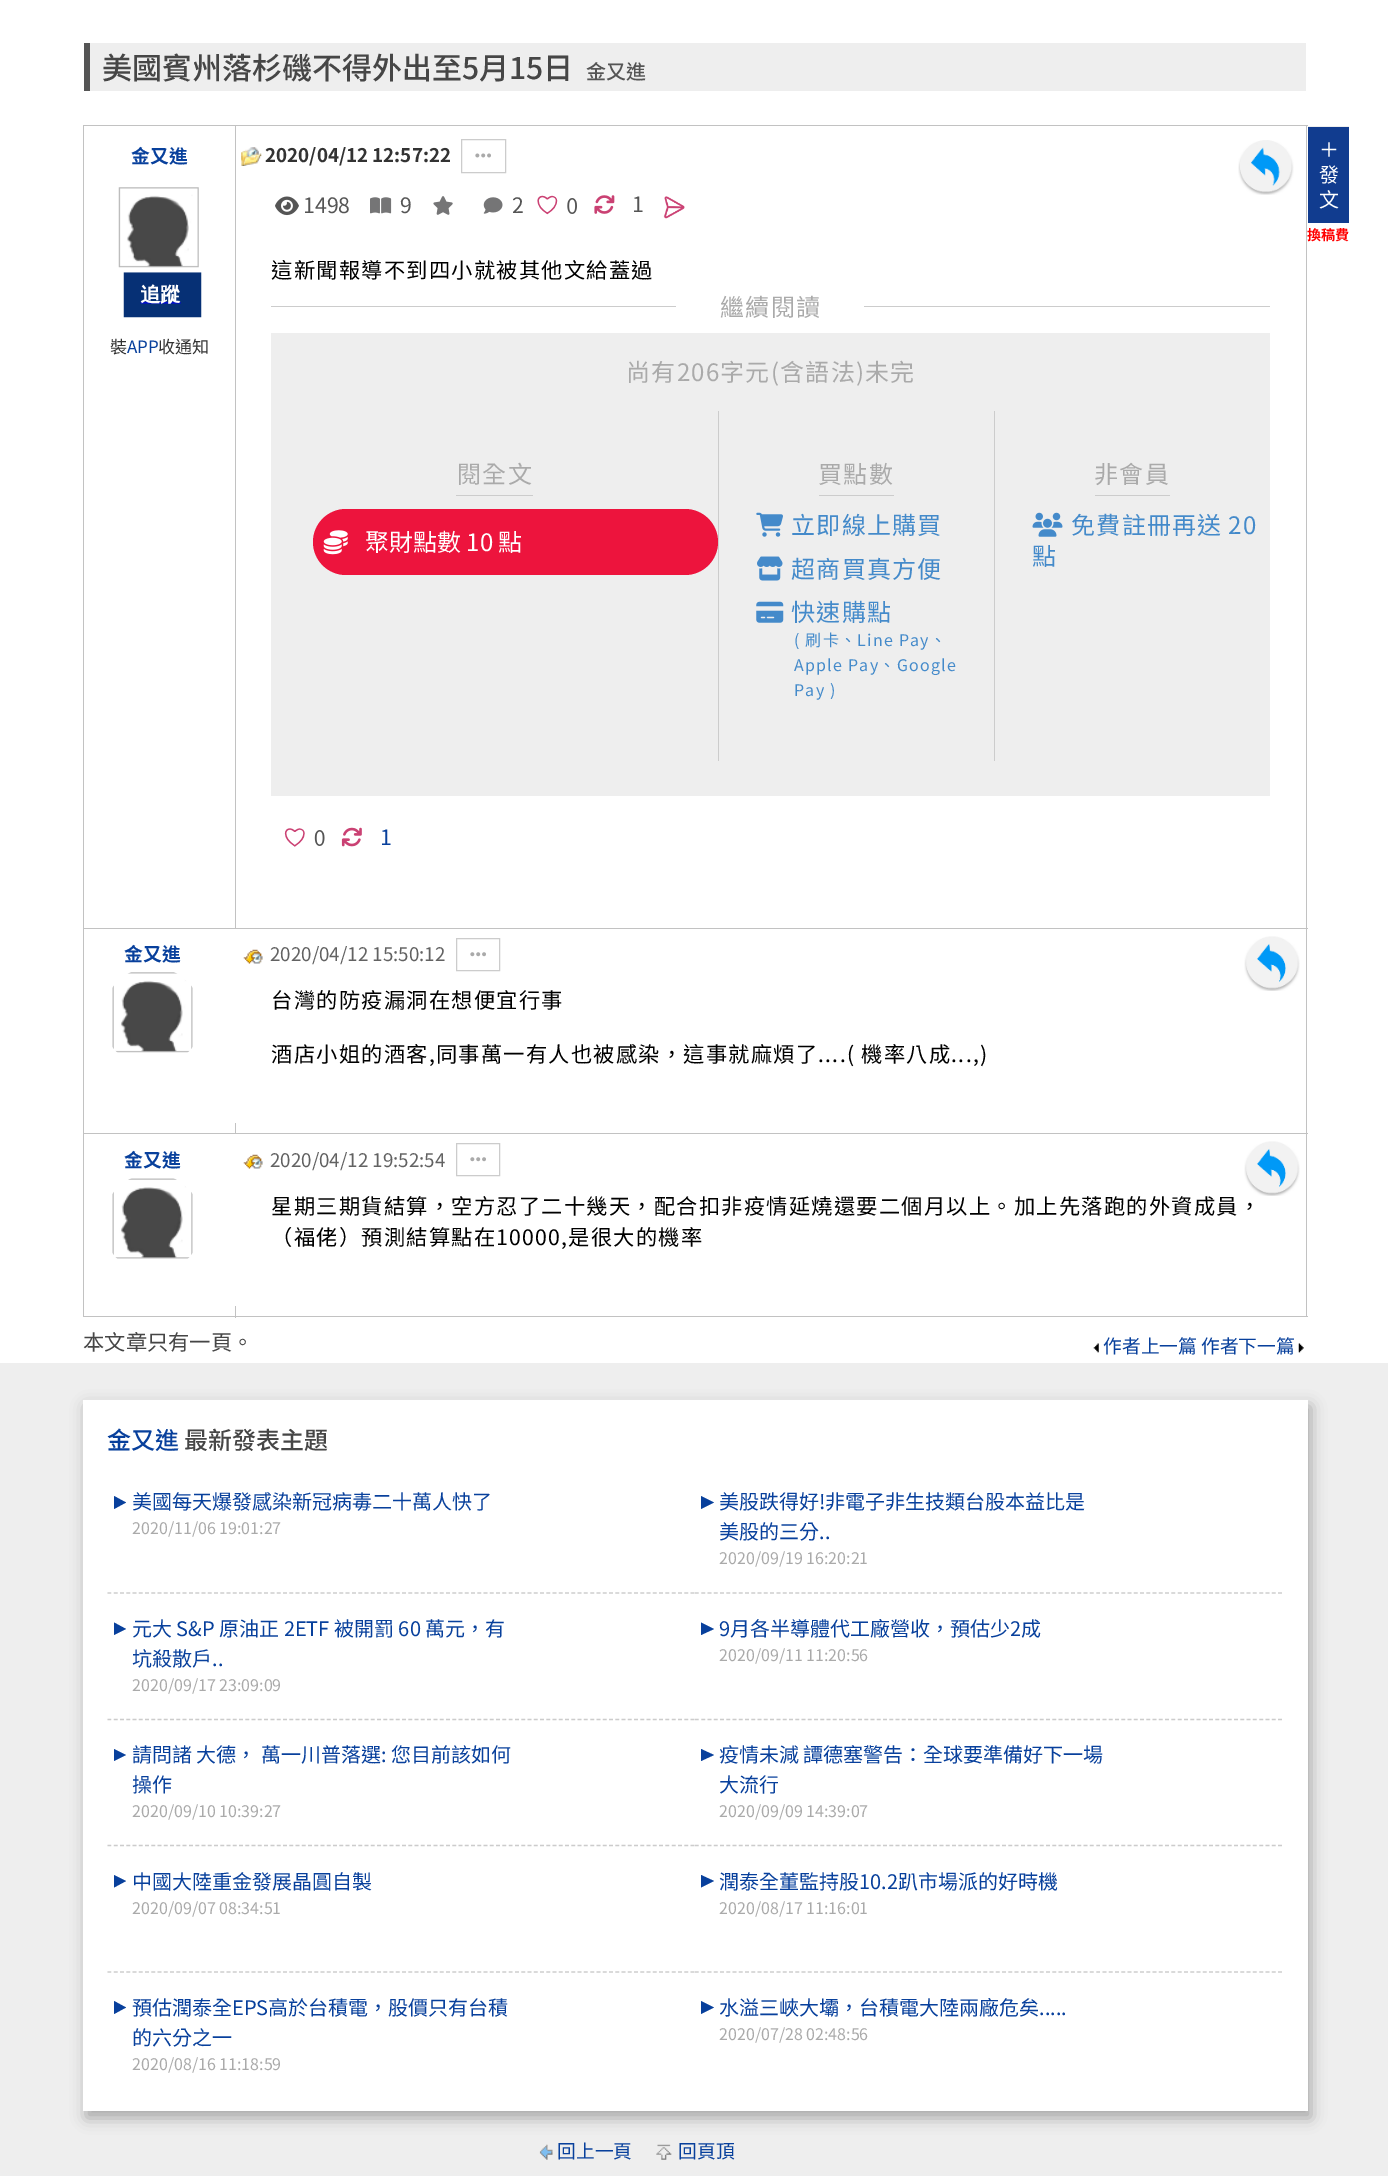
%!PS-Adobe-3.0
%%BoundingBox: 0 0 1388 2176
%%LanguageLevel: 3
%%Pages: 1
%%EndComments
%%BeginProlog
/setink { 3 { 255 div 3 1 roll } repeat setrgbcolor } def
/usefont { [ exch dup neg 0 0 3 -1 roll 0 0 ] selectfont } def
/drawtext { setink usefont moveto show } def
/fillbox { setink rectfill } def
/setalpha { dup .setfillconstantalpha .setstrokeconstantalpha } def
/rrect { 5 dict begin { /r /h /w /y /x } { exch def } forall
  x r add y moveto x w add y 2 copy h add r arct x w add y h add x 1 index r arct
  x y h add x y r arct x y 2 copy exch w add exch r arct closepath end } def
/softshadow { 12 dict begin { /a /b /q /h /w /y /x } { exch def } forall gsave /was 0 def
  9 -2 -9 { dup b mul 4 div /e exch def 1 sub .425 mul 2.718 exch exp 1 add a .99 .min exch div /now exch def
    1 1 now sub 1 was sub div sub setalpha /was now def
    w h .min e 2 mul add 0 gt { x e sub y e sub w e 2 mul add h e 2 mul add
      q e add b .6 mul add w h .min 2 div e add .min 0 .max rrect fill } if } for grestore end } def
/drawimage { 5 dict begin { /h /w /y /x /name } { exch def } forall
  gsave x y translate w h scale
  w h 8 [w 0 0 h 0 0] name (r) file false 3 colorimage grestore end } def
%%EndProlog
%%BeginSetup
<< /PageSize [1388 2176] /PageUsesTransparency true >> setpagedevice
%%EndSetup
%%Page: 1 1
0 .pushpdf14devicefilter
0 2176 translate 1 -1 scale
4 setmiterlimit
0 0 1388 2176 255 255 255 fillbox
90 43 1216 48 238 238 238 fillbox
84 43 6 48 85 85 85 fillbox
(美國賓州落杉磯不得外出至5月15日) 102 79 /NotoSansTC-Medium 30 70 70 70 drawtext
(金又進) 586 79 /NotoSansTC-Medium 20 85 85 85 drawtext
83 125 1225 1 194 194 194 fillbox
83 126 1 802 194 194 194 fillbox
1306 126 1 802 194 194 194 fillbox
(金又進) 131 163 /NotoSansTC-Bold 18.75 8 64 156 drawtext
(assets/img1.rgb) 118 187 81 81 drawimage
(assets/img2.rgb) 123 272 79 46 drawimage
(裝) 110 353 /NotoSansTC-Regular 17 51 51 51 drawtext
(APP) 127 353 /NotoSansTC-Regular 17 8 64 156 drawtext
(收通知) 158 353 /NotoSansTC-Regular 17 51 51 51 drawtext
(assets/img3.rgb) 241 147 21 19 drawimage
(2020/04/12 12:57:22) 265 162 /NotoSansTC-Bold 18.75 51 51 51 drawtext
204 204 204 setink
461.5 139.5 44 33 rectstroke
(assets/img4.rgb) 475 153 16 5 drawimage
(assets/img5.rgb) 1238 140 56 55 drawimage
1308 127 41 96 17 60 143 fillbox
1308 126 41 1 238 238 238 fillbox
(＋) 1319 157 /NotoSansTC-Regular 20 255 255 255 drawtext
(發) 1319 182 /NotoSansTC-Regular 20 255 255 255 drawtext
(文) 1319 207 /NotoSansTC-Regular 20 255 255 255 drawtext
(assets/img6.rgb) 275 196 24 20 drawimage
(1498) 303 213 /NotoSansTC-Regular 21.25 85 85 85 drawtext
(assets/img7.rgb) 370 197 22 17 drawimage
(9) 400 213 /NotoSansTC-Regular 21.25 85 85 85 drawtext
(assets/img8.rgb) 433 196 20 19 drawimage
(assets/img9.rgb) 483 197 20 17 drawimage
(2) 512 213 /NotoSansTC-Regular 21.25 85 85 85 drawtext
(assets/img10.rgb) 537 195 40 20 drawimage
(assets/img11.rgb) 594 195 21 19 drawimage
(1) 632 212 /NotoSansTC-Regular 21.25 85 85 85 drawtext
(assets/img12.rgb) 663 196 22 23 drawimage
0 0 0 setink
271 278 moveto 1.25 0 (這新聞報導不到四小就被其他文給蓋過) ashow
271 306 999 1 204 204 204 fillbox
676 306 188 1 255 255 255 fillbox
/NotoSansTC-Regular 24 usefont
170 170 170 setink
720 316 moveto 1.25 0 (繼續閱讀) ashow
271 333 999 463 238 238 238 fillbox
170 170 170 setink
626 381 moveto 1.25 0 (尚有206字元\(含語法\)未完) ashow
718 411 1 350 204 204 204 fillbox
456 495 77 1 204 204 204 fillbox
170 170 170 setink
457 483 moveto 1.25 0 (閱全文) ashow
237 20 61 setink
313 509 405 66 33 rrect fill
(assets/img13.rgb) 323 530 25 25 drawimage
(聚財點數 10 點) 365 551 /NotoSansTC-Regular 24 255 255 255 drawtext
819 495 75 1 204 204 204 fillbox
170 170 170 setink
818 483 moveto 1.25 0 (買點數) ashow
(assets/img14.rgb) 756 512 27 25 drawimage
68 138 202 setink
791 534 moveto 1.25 0 (立即線上購買) ashow
(assets/img15.rgb) 757 556 26 25 drawimage
791 578 moveto 1.25 0 (超商買真方便) ashow
(assets/img16.rgb) 756 601 28 22 drawimage
791 621 moveto 1.25 0 (快速購點) ashow
/NotoSansTC-Regular 16 usefont
794 646 moveto 1.25 0 (\( 刷卡、Line Pay、) ashow
794 671 moveto 1.25 0 (Apple Pay、Google) ashow
794 696 moveto 1.25 0 (Pay \)) ashow
994 411 1 350 204 204 204 fillbox
1095 495 75 1 204 204 204 fillbox
/NotoSansTC-Regular 24 usefont
170 170 170 setink
1094 483 moveto 1.25 0 (非會員) ashow
(assets/img17.rgb) 1032 512 31 25 drawimage
68 138 202 setink
1071 534 moveto 1.25 0 (免費註冊再送) ashow
1228 534 moveto 1.25 0 (20) ashow
1032 565 moveto 1.25 0 (點) ashow
(assets/img18.rgb) 284 828 41 19 drawimage
(assets/img19.rgb) 341 827 21 20 drawimage
(1) 380 845 /NotoSansTC-Regular 21.25 8 64 156 drawtext
(換稿費) 1307 240 /NotoSansTC-Bold 14 255 0 0 drawtext
83 928 1225 1 194 194 194 fillbox
83 929 1 204 194 194 194 fillbox
(金又進) 124 961 /NotoSansTC-Bold 18.75 8 64 156 drawtext
(assets/img20.rgb) 112 972 81 81 drawimage
235 125 1 1009 194 194 194 fillbox
235 929 1 194 255 255 255 fillbox
(assets/img21.rgb) 243 949 20 15 drawimage
(2020/04/12 15:50:12) 270 961 /NotoSansTC-Regular 18.75 98 98 98 drawtext
204 204 204 setink
456.5 938.5 43 32 rectstroke
(assets/img22.rgb) 470 952 16 5 drawimage
(assets/img23.rgb) 1244 936 56 55 drawimage
/NotoSansTC-Regular 21.25 usefont
0 0 0 setink
271 1008 moveto 1.25 0 (台灣的防疫漏洞在想便宜行事) ashow
271 1062 moveto 1.25 0 (酒店小姐的酒客,同事萬一有人也被感染，這事就麻煩了....\( 機率八成...,\)) ashow
1306 929 1 204 194 194 194 fillbox
83 1133 1225 1 194 194 194 fillbox
83 1134 1 182 194 194 194 fillbox
(金又進) 124 1167 /NotoSansTC-Bold 18.75 8 64 156 drawtext
(assets/img24.rgb) 112 1178 81 81 drawimage
(assets/img21.rgb) 243 1154 20 15 drawimage
(2020/04/12 19:52:54) 270 1167 /NotoSansTC-Regular 18.75 98 98 98 drawtext
204 204 204 setink
456.5 1143.5 43 32 rectstroke
(assets/img22.rgb) 470 1157 16 5 drawimage
(assets/img23.rgb) 1244 1141 56 55 drawimage
/NotoSansTC-Regular 21.25 usefont
0 0 0 setink
271 1214 moveto 1.25 0 (星期三期貨結算，空方忍了二十幾天，配合扣非疫情延燒還要二個月以上。加上先落跑的外資成員，) ashow
271 1245 moveto 1.25 0 (（福佬）預測結算點在10000,是很大的機率) ashow
235 1306 1 12 194 194 194 fillbox
1306 1134 1 182 194 194 194 fillbox
83 1316 1225 1 194 194 194 fillbox
(本文章只有一頁。) 83 1350 /NotoSansTC-Regular 21.25 70 70 70 drawtext
(assets/img25.rgb) 1093 1343 6 10 drawimage
(作者上一篇 作者下一篇) 1103 1353 /NotoSansTC-Regular 18.75 8 64 156 drawtext
(assets/img26.rgb) 1298 1343 6 10 drawimage
0 1363 1388 813 238 238 238 fillbox
0 0 0 setink
86 1406 1225 712 0 7.5 0.3 softshadow
83 1400 1225 711 255 255 255 fillbox
(金又進) 107 1449 /NotoSansTC-Medium 24 8 64 156 drawtext
(最新發表主題) 184 1449 /NotoSansTC-Medium 24 70 70 70 drawtext
204 204 204 setink
1.2 setlinewidth
[3.75 2.52] 0 setdash
107.5 1593 moveto 695 1593 lineto stroke
8 64 156 setink
114 1509 moveto 114 1496 lineto 126 1502.5 lineto closepath fill
(美國每天爆發感染新冠病毒二十萬人快了) 132 1509 /NotoSansTC-Regular 20 8 64 156 drawtext
(2020/11/06 19:01:27) 132 1534 /NotoSansTC-Regular 16 170 170 170 drawtext
204 204 204 setink
695 1593 moveto 1282.5 1593 lineto stroke
8 64 156 setink
701 1509 moveto 701 1496 lineto 714 1502.5 lineto closepath fill
(美股跌得好!非電子非生技類台股本益比是) 719 1509 /NotoSansTC-Regular 20 8 64 156 drawtext
(美股的三分..) 719 1539 /NotoSansTC-Regular 20 8 64 156 drawtext
(2020/09/19 16:20:21) 719 1564 /NotoSansTC-Regular 16 170 170 170 drawtext
204 204 204 setink
107.5 1719.5 moveto 695 1719.5 lineto stroke
8 64 156 setink
114 1635 moveto 114 1622.5 lineto 126 1629 lineto closepath fill
(元大 S&P 原油正 2ETF 被開罰 60 萬元，有) 132 1636 /NotoSansTC-Regular 20 8 64 156 drawtext
(坑殺散戶..) 132 1666 /NotoSansTC-Regular 20 8 64 156 drawtext
(2020/09/17 23:09:09) 132 1691 /NotoSansTC-Regular 16 170 170 170 drawtext
204 204 204 setink
695 1719.5 moveto 1282.5 1719.5 lineto stroke
8 64 156 setink
701 1635 moveto 701 1622.5 lineto 714 1629 lineto closepath fill
(9月各半導體代工廠營收，預估少2成) 719 1636 /NotoSansTC-Regular 20 8 64 156 drawtext
(2020/09/11 11:20:56) 719 1661 /NotoSansTC-Regular 16 170 170 170 drawtext
204 204 204 setink
107.5 1845.5 moveto 695 1845.5 lineto stroke
8 64 156 setink
114 1761 moveto 114 1749 lineto 126 1755 lineto closepath fill
(請問諸 大德， 萬一川普落選: 您目前該如何) 132 1762 /NotoSansTC-Regular 20 8 64 156 drawtext
(操作) 132 1792 /NotoSansTC-Regular 20 8 64 156 drawtext
(2020/09/10 10:39:27) 132 1817 /NotoSansTC-Regular 16 170 170 170 drawtext
204 204 204 setink
695 1845.5 moveto 1282.5 1845.5 lineto stroke
8 64 156 setink
701 1761 moveto 701 1749 lineto 714 1755 lineto closepath fill
(疫情未減 譚德塞警告：全球要準備好下一場) 719 1762 /NotoSansTC-Regular 20 8 64 156 drawtext
(大流行) 719 1792 /NotoSansTC-Regular 20 8 64 156 drawtext
(2020/09/09 14:39:07) 719 1817 /NotoSansTC-Regular 16 170 170 170 drawtext
204 204 204 setink
107.5 1972 moveto 695 1972 lineto stroke
8 64 156 setink
114 1887.5 moveto 114 1875 lineto 126 1881 lineto closepath fill
(中國大陸重金發展晶圓自製) 132 1889 /NotoSansTC-Regular 20 8 64 156 drawtext
(2020/09/07 08:34:51) 132 1914 /NotoSansTC-Regular 16 170 170 170 drawtext
204 204 204 setink
695 1972 moveto 1282.5 1972 lineto stroke
8 64 156 setink
701 1887.5 moveto 701 1875 lineto 714 1881 lineto closepath fill
(潤泰全董監持股10.2趴市場派的好時機) 719 1889 /NotoSansTC-Regular 20 8 64 156 drawtext
(2020/08/17 11:16:01) 719 1914 /NotoSansTC-Regular 16 170 170 170 drawtext
8 64 156 setink
114 2014 moveto 114 2001 lineto 126 2007.5 lineto closepath fill
(預估潤泰全EPS高於台積電，股價只有台積) 132 2015 /NotoSansTC-Regular 20 8 64 156 drawtext
(的六分之一) 132 2045 /NotoSansTC-Regular 20 8 64 156 drawtext
(2020/08/16 11:18:59) 132 2070 /NotoSansTC-Regular 16 170 170 170 drawtext
8 64 156 setink
701 2014 moveto 701 2001 lineto 714 2007.5 lineto closepath fill
(水溢三峽大壩，台積電大陸兩廠危矣.....) 719 2015 /NotoSansTC-Regular 20 8 64 156 drawtext
(2020/07/28 02:48:56) 719 2040 /NotoSansTC-Regular 16 170 170 170 drawtext
(assets/img27.rgb) 539 2144 14 16 drawimage
(回上一頁) 557 2158 /NotoSansTC-Regular 18.75 8 64 156 drawtext
(assets/img28.rgb) 656 2144 16 16 drawimage
(回頁頂) 678 2158 /NotoSansTC-Regular 18.75 8 64 156 drawtext
.poppdf14devicefilter showpage
%%EOF
